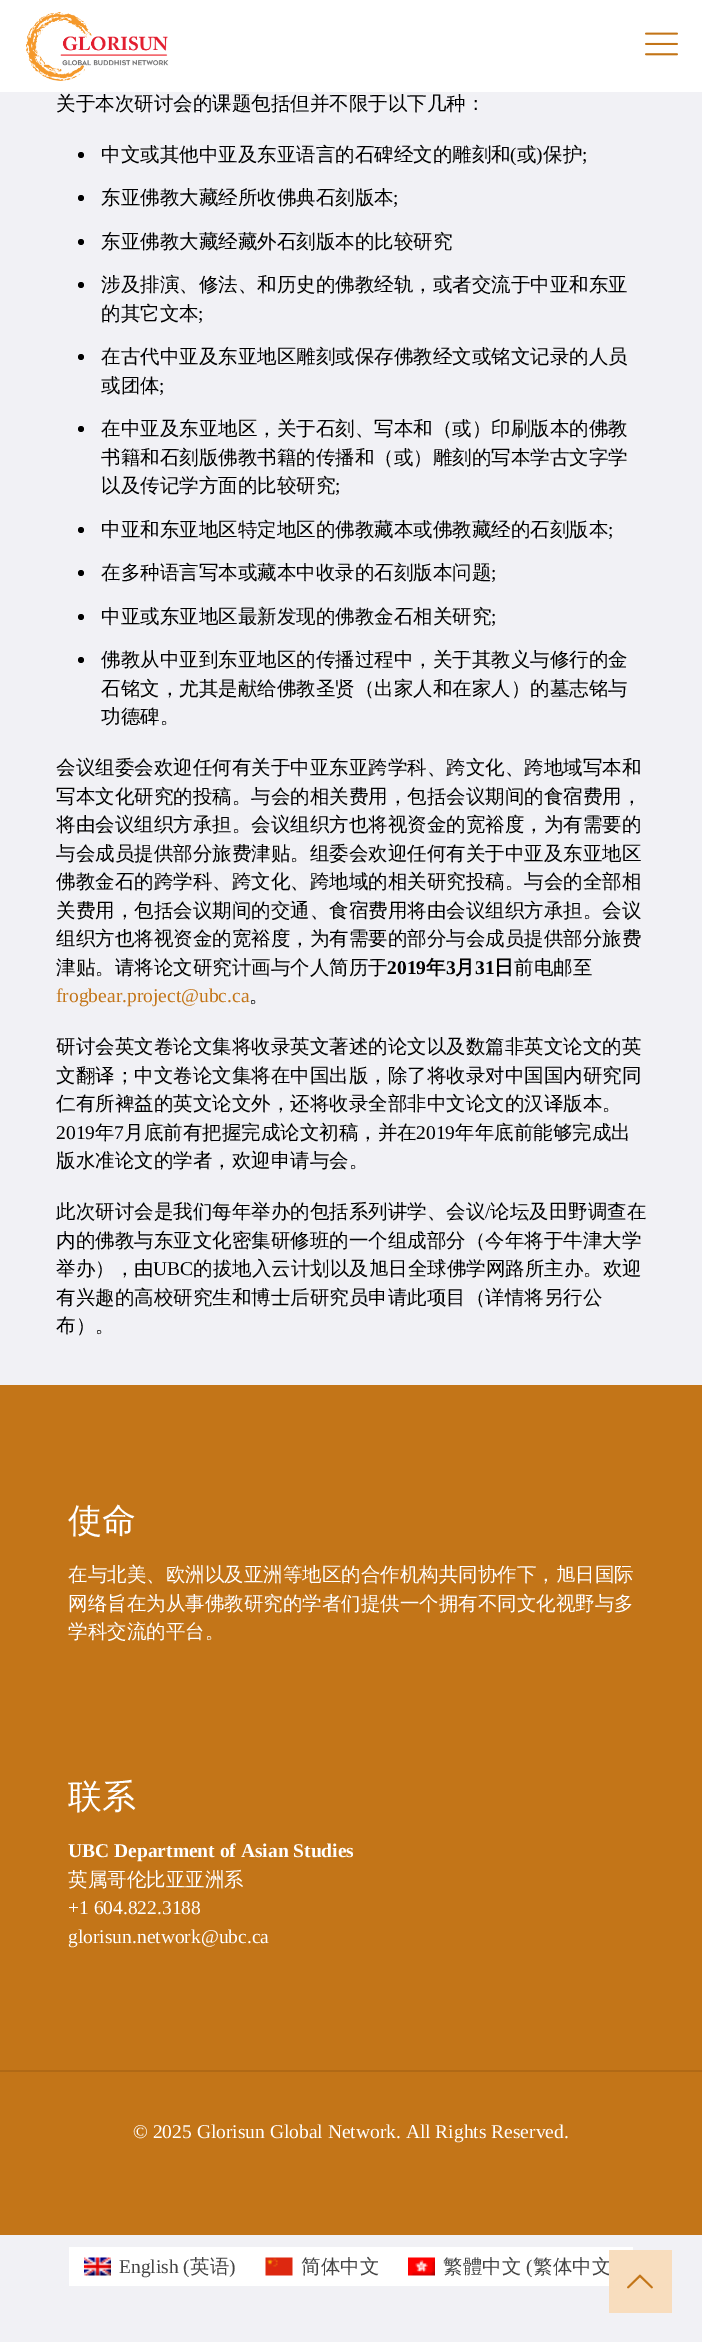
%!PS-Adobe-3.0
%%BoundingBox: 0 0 702 2342
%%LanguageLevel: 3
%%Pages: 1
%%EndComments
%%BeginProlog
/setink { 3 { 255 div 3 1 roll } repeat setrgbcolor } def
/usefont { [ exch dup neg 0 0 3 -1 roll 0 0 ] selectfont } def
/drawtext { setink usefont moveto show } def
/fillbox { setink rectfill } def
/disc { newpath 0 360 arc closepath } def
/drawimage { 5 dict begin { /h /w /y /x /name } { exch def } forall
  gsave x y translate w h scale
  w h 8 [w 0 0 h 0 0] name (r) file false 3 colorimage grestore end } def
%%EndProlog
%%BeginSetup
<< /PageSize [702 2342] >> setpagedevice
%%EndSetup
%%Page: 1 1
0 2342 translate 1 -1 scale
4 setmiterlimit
0 0 702 2342 241 241 245 fillbox
0 0 702 92 255 255 255 fillbox
(assets/img1.rgb) 26 12 143 69 drawimage
(assets/img2.rgb) 645 32 33 24 drawimage
(关于本次研讨会的课题包括但并不限于以下几种：) 56 110 /WenQuanYiZenHei-Medium 19.5 0 0 0 drawtext
81 155 3 disc fill
(中文或其他中亚及东亚语言的石碑经文的雕刻和) 101 161 /WenQuanYiZenHei-Medium 19.5 0 0 0 drawtext
(\() 510 161 /LiberationSerif-Regular 19.5 0 0 0 drawtext
(或) 517 161 /WenQuanYiZenHei-Medium 19.5 0 0 0 drawtext
(\)) 536 161 /LiberationSerif-Regular 19.5 0 0 0 drawtext
(保护) 543 161 /WenQuanYiZenHei-Medium 19.5 0 0 0 drawtext
(;) 582 161 /LiberationSerif-Regular 19.5 0 0 0 drawtext
81 198 3 disc fill
(东亚佛教大藏经所收佛典石刻版本) 101 204 /WenQuanYiZenHei-Medium 19.5 0 0 0 drawtext
(;) 393 204 /LiberationSerif-Regular 19.5 0 0 0 drawtext
81 242 3 disc fill
(东亚佛教大藏经藏外石刻版本的比较研究) 101 248 /WenQuanYiZenHei-Medium 19.5 0 0 0 drawtext
81 285 3 disc fill
(涉及排演、修法、和历史的佛教经轨，或者交流于中亚和东亚) 101 291 /WenQuanYiZenHei-Medium 19.5 0 0 0 drawtext
(的其它文本) 101 320 /WenQuanYiZenHei-Medium 19.5 0 0 0 drawtext
(;) 198 320 /LiberationSerif-Regular 19.5 0 0 0 drawtext
81 357 3 disc fill
(在古代中亚及东亚地区雕刻或保存佛教经文或铭文记录的人员) 101 363 /WenQuanYiZenHei-Medium 19.5 0 0 0 drawtext
(或团体) 101 392 /WenQuanYiZenHei-Medium 19.5 0 0 0 drawtext
(;) 159 392 /LiberationSerif-Regular 19.5 0 0 0 drawtext
81 429 3 disc fill
(在中亚及东亚地区，关于石刻、写本和（或）印刷版本的佛教) 101 435 /WenQuanYiZenHei-Medium 19.5 0 0 0 drawtext
(书籍和石刻版佛教书籍的传播和（或）雕刻的写本学古文字学) 101 464 /WenQuanYiZenHei-Medium 19.5 0 0 0 drawtext
(以及传记学方面的比较研究) 101 492 /WenQuanYiZenHei-Medium 19.5 0 0 0 drawtext
(;) 335 492 /LiberationSerif-Regular 19.5 0 0 0 drawtext
81 530 3 disc fill
(中亚和东亚地区特定地区的佛教藏本或佛教藏经的石刻版本) 101 536 /WenQuanYiZenHei-Medium 19.5 0 0 0 drawtext
(;) 608 536 /LiberationSerif-Regular 19.5 0 0 0 drawtext
81 573 3 disc fill
(在多种语言写本或藏本中收录的石刻版本问题) 101 579 /WenQuanYiZenHei-Medium 19.5 0 0 0 drawtext
(;) 491 579 /LiberationSerif-Regular 19.5 0 0 0 drawtext
81 617 3 disc fill
(中亚或东亚地区最新发现的佛教金石相关研究) 101 623 /WenQuanYiZenHei-Medium 19.5 0 0 0 drawtext
(;) 491 623 /LiberationSerif-Regular 19.5 0 0 0 drawtext
81 660 3 disc fill
(佛教从中亚到东亚地区的传播过程中，关于其教义与修行的金) 101 666 /WenQuanYiZenHei-Medium 19.5 0 0 0 drawtext
(石铭文，尤其是献给佛教圣贤（出家人和在家人）的墓志铭与) 101 695 /WenQuanYiZenHei-Medium 19.5 0 0 0 drawtext
(功德碑。) 101 723 /WenQuanYiZenHei-Medium 19.5 0 0 0 drawtext
(会议组委会欢迎任何有关于中亚东亚跨学科、跨文化、跨地域写本和) 56 774 /WenQuanYiZenHei-Medium 19.5 0 0 0 drawtext
(写本文化研究的投稿。与会的相关费用，包括会议期间的食宿费用，) 56 803 /WenQuanYiZenHei-Medium 19.5 0 0 0 drawtext
(将由会议组织方承担。会议组织方也将视资金的宽裕度，为有需要的) 56 831 /WenQuanYiZenHei-Medium 19.5 0 0 0 drawtext
(与会成员提供部分旅费津贴。组委会欢迎任何有关于中亚及东亚地区) 56 860 /WenQuanYiZenHei-Medium 19.5 0 0 0 drawtext
(佛教金石的跨学科、跨文化、跨地域的相关研究投稿。与会的全部相) 56 888 /WenQuanYiZenHei-Medium 19.5 0 0 0 drawtext
(关费用，包括会议期间的交通、食宿费用将由会议组织方承担。会议) 56 917 /WenQuanYiZenHei-Medium 19.5 0 0 0 drawtext
(组织方也将视资金的宽裕度，为有需要的部分与会成员提供部分旅费) 56 945 /WenQuanYiZenHei-Medium 19.5 0 0 0 drawtext
(津贴。请将论文研究计画与个人简历于) 56 974 /WenQuanYiZenHei-Medium 19.5 0 0 0 drawtext
(2019) 387 974 /LiberationSerif-Bold 19.5 0 0 0 drawtext
(年) 426 974 /WenQuanYiZenHei-Bold 19.5 0 0 0 drawtext
(3) 446 974 /LiberationSerif-Bold 19.5 0 0 0 drawtext
(月) 455 974 /WenQuanYiZenHei-Bold 19.5 0 0 0 drawtext
(31) 475 974 /LiberationSerif-Bold 19.5 0 0 0 drawtext
(日) 494 974 /WenQuanYiZenHei-Bold 19.5 0 0 0 drawtext
(前电邮至) 514 974 /WenQuanYiZenHei-Medium 19.5 0 0 0 drawtext
(frogbear.project@ubc.ca) 56 1002 /LiberationSerif-Regular 19.5 195 117 24 drawtext
(。) 249 1002 /WenQuanYiZenHei-Medium 19.5 0 0 0 drawtext
(研讨会英文卷论文集将收录英文著述的论文以及数篇非英文论文的英) 56 1053 /WenQuanYiZenHei-Medium 19.5 0 0 0 drawtext
(文翻译；中文卷论文集将在中国出版，除了将收录对中国国内研究同) 56 1082 /WenQuanYiZenHei-Medium 19.5 0 0 0 drawtext
(仁有所裨益的英文论文外，还将收录全部非中文论文的汉译版本。) 56 1110 /WenQuanYiZenHei-Medium 19.5 0 0 0 drawtext
(2019) 56 1139 /LiberationSerif-Regular 19.5 0 0 0 drawtext
(年) 95 1139 /WenQuanYiZenHei-Medium 19.5 0 0 0 drawtext
(7) 114 1139 /LiberationSerif-Regular 19.5 0 0 0 drawtext
(月底前有把握完成论文初稿，并在) 124 1139 /WenQuanYiZenHei-Medium 19.5 0 0 0 drawtext
(2019) 416 1139 /LiberationSerif-Regular 19.5 0 0 0 drawtext
(年年底前能够完成出) 455 1139 /WenQuanYiZenHei-Medium 19.5 0 0 0 drawtext
(版水准论文的学者，欢迎申请与会。) 56 1167 /WenQuanYiZenHei-Medium 19.5 0 0 0 drawtext
(此次研讨会是我们每年举办的包括系列讲学、会议) 56 1218 /WenQuanYiZenHei-Medium 19.5 0 0 0 drawtext
(/) 485 1218 /LiberationSerif-Regular 19.5 0 0 0 drawtext
(论坛及田野调查在) 490 1218 /WenQuanYiZenHei-Medium 19.5 0 0 0 drawtext
(内的佛教与东亚文化密集研修班的一个组成部分（今年将于牛津大学) 56 1247 /WenQuanYiZenHei-Medium 19.5 0 0 0 drawtext
(举办），由) 56 1275 /WenQuanYiZenHei-Medium 19.5 0 0 0 drawtext
(UBC) 153 1275 /LiberationSerif-Regular 19.5 0 0 0 drawtext
(的拔地入云计划以及旭日全球佛学网路所主办。欢迎) 193 1275 /WenQuanYiZenHei-Medium 19.5 0 0 0 drawtext
(有兴趣的高校研究生和博士后研究员申请此项目（详情将另行公) 56 1304 /WenQuanYiZenHei-Medium 19.5 0 0 0 drawtext
(布）。) 56 1332 /WenQuanYiZenHei-Medium 19.5 0 0 0 drawtext
0 1385 702 850 195 117 24 fillbox
(使命) 68 1532 /WenQuanYiZenHei-Medium 34 255 255 255 drawtext
(在与北美、欧洲以及亚洲等地区的合作机构共同协作下，旭日国际) 68 1581 /WenQuanYiZenHei-Medium 19.5 255 255 255 drawtext
(网络旨在为从事佛教研究的学者们提供一个拥有不同文化视野与多) 68 1610 /WenQuanYiZenHei-Medium 19.5 255 255 255 drawtext
(学科交流的平台。) 68 1638 /WenQuanYiZenHei-Medium 19.5 255 255 255 drawtext
(联系) 68 1808 /WenQuanYiZenHei-Medium 34 255 255 255 drawtext
(UBC Department of Asian Studies) 68 1857 /LiberationSerif-Bold 19.5 255 255 255 drawtext
(英属哥伦比亚亚洲系) 68 1886 /WenQuanYiZenHei-Medium 19.5 255 255 255 drawtext
(+1 604.822.3188) 68 1914 /LiberationSerif-Regular 19.5 255 255 255 drawtext
(glorisun.network@ubc.ca) 68 1943 /LiberationSerif-Regular 19.5 255 255 255 drawtext
0 2070 702 2 176 105 22 fillbox
(© 2025 Glorisun Global Network. All Rights Reserved.) 133 2138 /LiberationSerif-Regular 19.5 255 255 255 drawtext
69 2247 564 39 255 255 255 fillbox
(assets/img3.rgb) 84 2257 27 19 drawimage
(English \() 119 2273 /LiberationSerif-Regular 19.5 68 68 68 drawtext
(英语) 190 2273 /WenQuanYiZenHei-Medium 19.5 68 68 68 drawtext
(\)) 229 2273 /LiberationSerif-Regular 19.5 68 68 68 drawtext
(assets/img4.rgb) 265 2257 28 19 drawimage
(简体中文) 301 2273 /WenQuanYiZenHei-Medium 19.5 68 68 68 drawtext
(assets/img5.rgb) 408 2257 27 19 drawimage
(繁體中文) 443 2273 /WenQuanYiZenHei-Medium 19.5 68 68 68 drawtext
(\() 526 2273 /LiberationSerif-Regular 19.5 68 68 68 drawtext
(繁体中文) 533 2273 /WenQuanYiZenHei-Medium 19.5 68 68 68 drawtext
609 2250 63 63 248 221 190 fillbox
(assets/img6.rgb) 627 2274 26 15 drawimage
showpage
%%EOF
